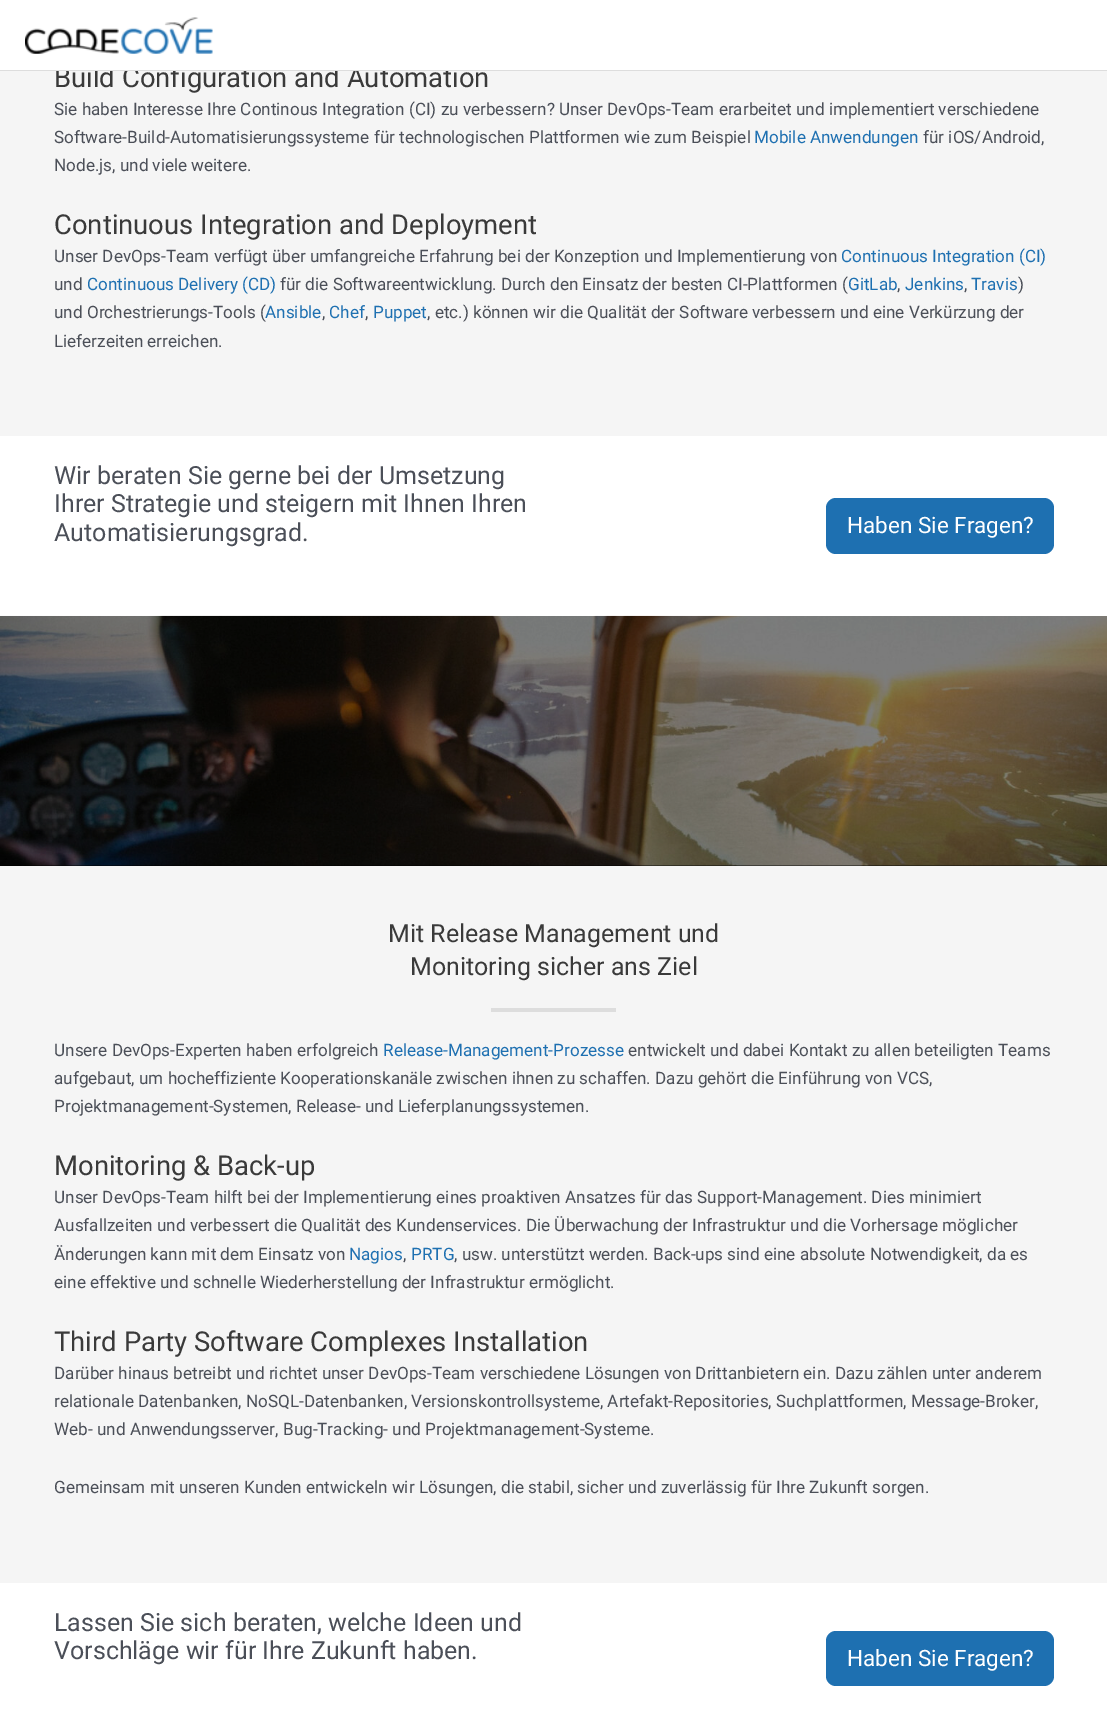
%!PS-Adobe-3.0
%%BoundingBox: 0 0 1107 1723
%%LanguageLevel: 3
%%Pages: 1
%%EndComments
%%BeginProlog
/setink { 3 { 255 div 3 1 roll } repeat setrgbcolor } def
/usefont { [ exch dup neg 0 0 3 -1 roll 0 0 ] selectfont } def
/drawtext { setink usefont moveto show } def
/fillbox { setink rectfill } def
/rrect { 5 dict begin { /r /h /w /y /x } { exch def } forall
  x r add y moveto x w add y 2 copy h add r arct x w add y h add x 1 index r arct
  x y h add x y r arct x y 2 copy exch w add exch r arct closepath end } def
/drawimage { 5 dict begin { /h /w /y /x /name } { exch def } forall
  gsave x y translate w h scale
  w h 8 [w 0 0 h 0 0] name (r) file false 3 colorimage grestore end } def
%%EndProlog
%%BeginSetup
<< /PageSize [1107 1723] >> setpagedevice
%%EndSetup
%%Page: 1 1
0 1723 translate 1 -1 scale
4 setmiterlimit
0 0 1107 1723 255 255 255 fillbox
0 71 1107 365 245 245 245 fillbox
(Build Configuration and Automation) 54 87 /Roboto-Regular 27.4 58 58 58 drawtext
56 66 401 4 255 255 255 fillbox
0 70 1107 1 221 221 221 fillbox
(assets/img1.rgb) 25 17 188 37 drawimage
(Sie haben Interesse Ihre Continous Integration \(CI\) zu verbessern? Unser DevOps-Team erarbeitet und implementiert verschiedene) 54 115 /Roboto-Regular 17.1 75 79 88 drawtext
(Software-Build-Automatisierungssysteme für technologischen Plattformen wie zum Beispiel) 54 143 /Roboto-Regular 17.1 75 79 88 drawtext
(Mobile Anwendungen) 754 143 /Roboto-Regular 17.1 30 112 177 drawtext
(für iOS/Android,) 923 143 /Roboto-Regular 17.1 75 79 88 drawtext
(Node.js, und viele weitere.) 54 171 /Roboto-Regular 17.1 75 79 88 drawtext
(Continuous Integration and Deployment) 54 234 /Roboto-Regular 27.4 58 58 58 drawtext
(Unser DevOps-Team verfügt über umfangreiche Erfahrung bei der Konzeption und Implementierung von) 54 262 /Roboto-Regular 17.1 75 79 88 drawtext
(Continuous Integration \(CI\)) 841 262 /Roboto-Regular 17.1 30 112 177 drawtext
(und) 54 290 /Roboto-Regular 17.1 75 79 88 drawtext
(Continuous Delivery \(CD\)) 87 290 /Roboto-Regular 17.1 30 112 177 drawtext
(für die Softwareentwicklung. Durch den Einsatz der besten CI-Plattformen \() 280 290 /Roboto-Regular 17.1 75 79 88 drawtext
(GitLab) 848 290 /Roboto-Regular 17.1 30 112 177 drawtext
(,) 897 290 /Roboto-Regular 17.1 75 79 88 drawtext
(Jenkins) 905 290 /Roboto-Regular 17.1 30 112 177 drawtext
(,) 964 290 /Roboto-Regular 17.1 75 79 88 drawtext
(Travis) 971 290 /Roboto-Regular 17.1 30 112 177 drawtext
(\)) 1018 290 /Roboto-Regular 17.1 75 79 88 drawtext
(und Orchestrierungs-Tools \() 54 318 /Roboto-Regular 17.1 75 79 88 drawtext
(Ansible) 265 318 /Roboto-Regular 17.1 30 112 177 drawtext
(,) 322 318 /Roboto-Regular 17.1 75 79 88 drawtext
(Chef) 329 318 /Roboto-Regular 17.1 30 112 177 drawtext
(,) 365 318 /Roboto-Regular 17.1 75 79 88 drawtext
(Puppet) 373 318 /Roboto-Regular 17.1 30 112 177 drawtext
(, etc.\) können wir die Qualität der Software verbessern und eine Verkürzung der) 427 318 /Roboto-Regular 17.1 75 79 88 drawtext
(Lieferzeiten erreichen.) 54 347 /Roboto-Regular 17.1 75 79 88 drawtext
(Wir beraten Sie gerne bei der Umsetzung) 54 484 /Roboto-Regular 25 75 79 88 drawtext
(Ihrer Strategie und steigern mit Ihnen Ihren) 54 512 /Roboto-Regular 25 75 79 88 drawtext
(Automatisierungsgrad.) 54 541 /Roboto-Regular 25 75 79 88 drawtext
30 112 177 setink
826 498 228 56 10 rrect fill
(Haben Sie Fragen?) 847 533 /Roboto-Regular 22.5 255 255 255 drawtext
0 865 1107 1 0 0 0 fillbox
(assets/img2.rgb) 0 615 1107 251 drawimage
0 866 1107 717 245 245 245 fillbox
(Mit Release Management und) 388 942 /Roboto-Regular 25 58 58 58 drawtext
(Monitoring sicher ans Ziel) 410 975 /Roboto-Regular 25 58 58 58 drawtext
491 1008 125 4 221 221 221 fillbox
(Unsere DevOps-Experten haben erfolgreich) 54 1056 /Roboto-Regular 17.1 75 79 88 drawtext
(Release-Management-Prozesse) 383 1056 /Roboto-Regular 17.1 30 112 177 drawtext
(entwickelt und dabei Kontakt zu allen beteiligten Teams) 628 1056 /Roboto-Regular 17.1 75 79 88 drawtext
(aufgebaut, um hocheffiziente Kooperationskanäle zwischen ihnen zu schaffen. Dazu gehört die Einführung von VCS,) 54 1084 /Roboto-Regular 17.1 75 79 88 drawtext
(Projektmanagement-Systemen, Release- und Lieferplanungssystemen.) 54 1112 /Roboto-Regular 17.1 75 79 88 drawtext
(Monitoring & Back-up) 54 1175 /Roboto-Regular 27.4 58 58 58 drawtext
(Unser DevOps-Team hilft bei der Implementierung eines proaktiven Ansatzes für das Support-Management. Dies minimiert) 54 1203 /Roboto-Regular 17.1 75 79 88 drawtext
(Ausfallzeiten und verbessert die Qualität des Kundenservices. Die Überwachung der Infrastruktur und die Vorhersage möglicher) 54 1231 /Roboto-Regular 17.1 75 79 88 drawtext
(Änderungen kann mit dem Einsatz von) 54 1260 /Roboto-Regular 17.1 75 79 88 drawtext
(Nagios) 349 1260 /Roboto-Regular 17.1 30 112 177 drawtext
(,) 403 1260 /Roboto-Regular 17.1 75 79 88 drawtext
(PRTG) 411 1260 /Roboto-Regular 17.1 30 112 177 drawtext
(, usw. unterstützt werden. Back-ups sind eine absolute Notwendigkeit, da es) 454 1260 /Roboto-Regular 17.1 75 79 88 drawtext
(eine effektive und schnelle Wiederherstellung der Infrastruktur ermöglicht.) 54 1288 /Roboto-Regular 17.1 75 79 88 drawtext
(Third Party Software Complexes Installation) 54 1351 /Roboto-Regular 27.4 58 58 58 drawtext
(Darüber hinaus betreibt und richtet unser DevOps-Team verschiedene Lösungen von Drittanbietern ein. Dazu zählen unter anderem) 54 1379 /Roboto-Regular 17.1 75 79 88 drawtext
(relationale Datenbanken, NoSQL-Datenbanken, Versionskontrollsysteme, Artefakt-Repositories, Suchplattformen, Message-Broker,) 54 1407 /Roboto-Regular 17.1 75 79 88 drawtext
(Web- und Anwendungsserver, Bug-Tracking- und Projektmanagement-Systeme.) 54 1435 /Roboto-Regular 17.1 75 79 88 drawtext
(Gemeinsam mit unseren Kunden entwickeln wir Lösungen, die stabil, sicher und zuverlässig für Ihre Zukunft sorgen.) 54 1493 /Roboto-Regular 17.1 75 79 88 drawtext
(Lassen Sie sich beraten, welche Ideen und) 54 1631 /Roboto-Regular 25 75 79 88 drawtext
(Vorschläge wir für Ihre Zukunft haben.) 54 1659 /Roboto-Regular 25 75 79 88 drawtext
30 112 177 setink
826 1631 228 55 10 rrect fill
(Haben Sie Fragen?) 847 1666 /Roboto-Regular 22.5 255 255 255 drawtext
showpage
%%EOF
